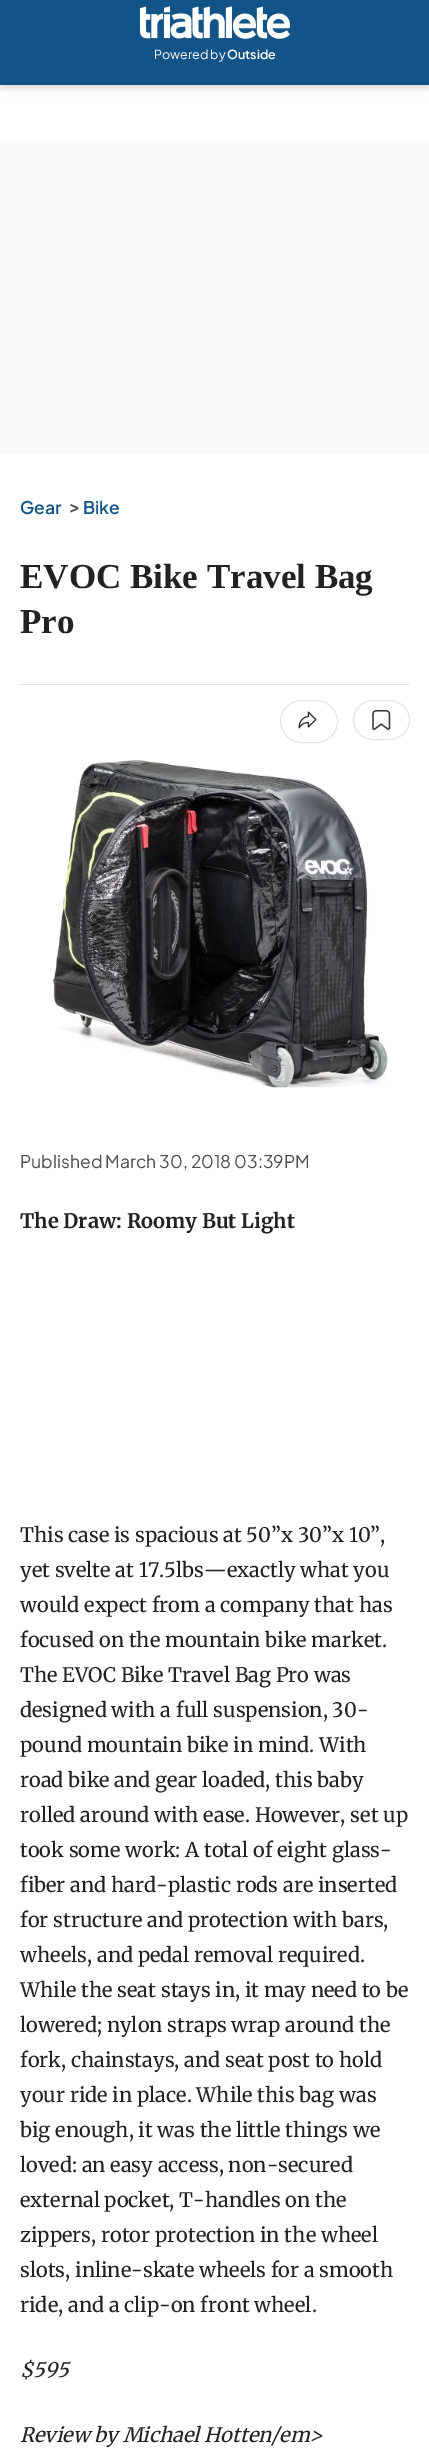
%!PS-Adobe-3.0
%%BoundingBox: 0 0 429 2452
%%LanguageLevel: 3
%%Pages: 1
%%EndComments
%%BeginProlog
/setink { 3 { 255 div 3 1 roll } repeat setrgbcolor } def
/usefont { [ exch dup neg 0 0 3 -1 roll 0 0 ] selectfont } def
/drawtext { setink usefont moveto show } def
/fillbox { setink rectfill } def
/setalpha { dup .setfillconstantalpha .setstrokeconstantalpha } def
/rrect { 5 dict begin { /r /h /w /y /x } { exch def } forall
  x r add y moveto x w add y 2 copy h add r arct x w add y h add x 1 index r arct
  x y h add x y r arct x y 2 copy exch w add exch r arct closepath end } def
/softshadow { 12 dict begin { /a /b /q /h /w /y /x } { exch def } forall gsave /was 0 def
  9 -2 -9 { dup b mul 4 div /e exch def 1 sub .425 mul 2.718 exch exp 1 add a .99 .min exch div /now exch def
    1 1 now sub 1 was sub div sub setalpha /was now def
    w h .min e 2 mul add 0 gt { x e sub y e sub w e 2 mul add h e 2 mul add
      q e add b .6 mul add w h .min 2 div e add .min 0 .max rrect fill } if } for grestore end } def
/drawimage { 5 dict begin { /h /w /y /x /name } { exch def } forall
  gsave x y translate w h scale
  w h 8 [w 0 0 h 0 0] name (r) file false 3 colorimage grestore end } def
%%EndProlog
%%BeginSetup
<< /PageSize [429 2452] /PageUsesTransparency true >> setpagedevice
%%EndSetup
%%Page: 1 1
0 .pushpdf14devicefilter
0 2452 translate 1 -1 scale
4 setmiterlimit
0 0 429 2452 255 255 255 fillbox
0 0 0 setink
3 5 425 80 0 2.5 0.1 softshadow
1 6 428 83 0 4 0.1 softshadow
0 0 429 85 18 84 136 fillbox
(assets/img1.rgb) 140 6 150 33 drawimage
(Powered by) 154 59 /PlusJakartaSans-Regular 12.5 255 255 255 drawtext
(Outside) 227 59 /PlusJakartaSans-SemiBold 12.5 255 255 255 drawtext
0 141 429 313 249 249 249 fillbox
(Gear) 20 514 /PlusJakartaSans-SemiBold 17.5 18 84 136 drawtext
(>) 69 513 /PlusJakartaSans-SemiBold 17.5 78 78 78 drawtext
(Bike) 83 514 /PlusJakartaSans-SemiBold 17.5 18 84 136 drawtext
(EVOC Bike Travel Bag) 20 588 /LiberationSerif-Bold 35 34 34 34 drawtext
(Pro) 20 633 /LiberationSerif-Bold 35 34 34 34 drawtext
20 684 390 1 229 229 229 fillbox
280.5 700.5 57 42 21 rrect stroke
(assets/img2.rgb) 298 711 19 18 drawimage
353.5 700.5 56 39 19.5 rrect stroke
(assets/img3.rgb) 372 710 19 20 drawimage
(assets/img4.rgb) 52 760 336 328 drawimage
(Published March 30, 2018 03:39PM) 20 1168 /PlusJakartaSans-Regular 17.5 78 78 78 drawtext
(The Draw: Roomy But Light) 20 1228 /Merriweather-Bold 20 34 34 34 drawtext
(This case is spacious at 50”x 30”x 10”,) 20 1542 /Merriweather-Regular 20 34 34 34 drawtext
(yet svelte at 17.5lbs—exactly what you) 20 1577 /Merriweather-Regular 20 34 34 34 drawtext
(would expect from a company that has) 20 1612 /Merriweather-Regular 20 34 34 34 drawtext
(focused on the mountain bike market.) 20 1647 /Merriweather-Regular 20 34 34 34 drawtext
(The EVOC Bike Travel Bag Pro was) 20 1682 /Merriweather-Regular 20 34 34 34 drawtext
(designed with a full suspension, 30-) 20 1717 /Merriweather-Regular 20 34 34 34 drawtext
(pound mountain bike in mind. With) 20 1752 /Merriweather-Regular 20 34 34 34 drawtext
(road bike and gear loaded, this baby) 20 1787 /Merriweather-Regular 20 34 34 34 drawtext
(rolled around with ease. However, set up) 20 1822 /Merriweather-Regular 20 34 34 34 drawtext
(took some work: A total of eight glass-) 20 1857 /Merriweather-Regular 20 34 34 34 drawtext
(fiber and hard-plastic rods are inserted) 20 1892 /Merriweather-Regular 20 34 34 34 drawtext
(for structure and protection with bars,) 20 1927 /Merriweather-Regular 20 34 34 34 drawtext
(wheels, and pedal removal required.) 20 1962 /Merriweather-Regular 20 34 34 34 drawtext
(While the seat stays in, it may need to be) 20 1997 /Merriweather-Regular 20 34 34 34 drawtext
(lowered; nylon straps wrap around the) 20 2032 /Merriweather-Regular 20 34 34 34 drawtext
(fork, chainstays, and seat post to hold) 20 2067 /Merriweather-Regular 20 34 34 34 drawtext
(your ride in place. While this bag was) 20 2102 /Merriweather-Regular 20 34 34 34 drawtext
(big enough, it was the little things we) 20 2137 /Merriweather-Regular 20 34 34 34 drawtext
(loved: an easy access, non-secured) 20 2172 /Merriweather-Regular 20 34 34 34 drawtext
(external pocket, T-handles on the) 20 2207 /Merriweather-Regular 20 34 34 34 drawtext
(zippers, rotor protection in the wheel) 20 2242 /Merriweather-Regular 20 34 34 34 drawtext
(slots, inline-skate wheels for a smooth) 20 2277 /Merriweather-Regular 20 34 34 34 drawtext
(ride, and a clip-on front wheel.) 20 2312 /Merriweather-Regular 20 34 34 34 drawtext
($595) 20 2377 /Merriweather-Italic 20 34 34 34 drawtext
(Review by Michael Hotten/em>) 20 2442 /Merriweather-Italic 20 34 34 34 drawtext
.poppdf14devicefilter showpage
%%EOF
